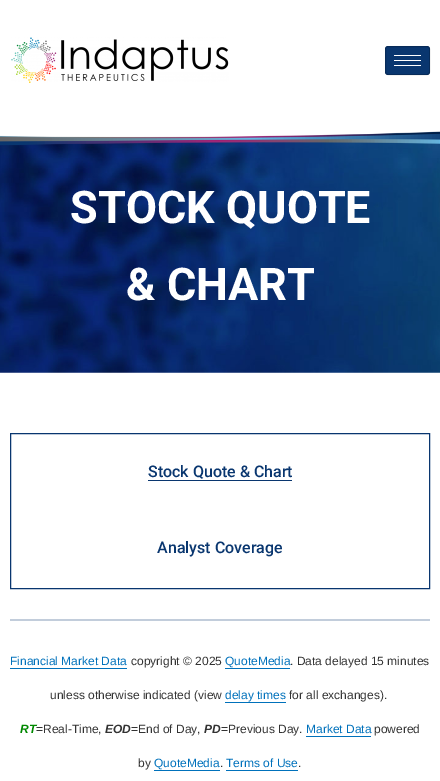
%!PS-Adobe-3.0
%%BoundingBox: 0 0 440 781
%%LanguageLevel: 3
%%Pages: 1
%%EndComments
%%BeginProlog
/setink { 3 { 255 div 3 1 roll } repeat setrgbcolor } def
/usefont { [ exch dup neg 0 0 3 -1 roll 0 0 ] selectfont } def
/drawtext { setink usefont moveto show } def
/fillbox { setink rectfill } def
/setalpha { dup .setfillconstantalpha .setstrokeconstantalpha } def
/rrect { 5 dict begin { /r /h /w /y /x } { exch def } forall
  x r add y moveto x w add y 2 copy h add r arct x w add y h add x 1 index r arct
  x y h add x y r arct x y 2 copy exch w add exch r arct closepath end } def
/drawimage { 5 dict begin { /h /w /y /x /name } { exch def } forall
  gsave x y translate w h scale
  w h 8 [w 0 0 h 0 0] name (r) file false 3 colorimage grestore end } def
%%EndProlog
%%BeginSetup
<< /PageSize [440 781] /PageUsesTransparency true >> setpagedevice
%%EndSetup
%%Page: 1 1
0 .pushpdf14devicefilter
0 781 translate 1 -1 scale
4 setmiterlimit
0 0 440 781 255 255 255 fillbox
(assets/img1.rgb) 11 37 218 46 drawimage
9 54 111 setink
385 46 45 29 3 rrect fill
0.2 setalpha
0 0 0 setink
385.5 46.5 44 28 2.5 rrect stroke
1 setalpha
394 55 27 1 255 255 255 fillbox
394 60 27 1 255 255 255 fillbox
394 65 27 1 255 255 255 fillbox
(assets/img2.rgb) 0 131 440 242 drawimage
(STOCK QUOTE) 70 223 /Roboto-Bold 45 255 255 255 drawtext
(& CHART) 126 300 /Roboto-Bold 45 255 255 255 drawtext
9 54 111 setink
10.5 433.5 419 155 rectstroke
(Stock Quote & Chart) 148 477 /Roboto-Medium 16 9 54 111 drawtext
148 480 144 1 9 54 111 fillbox
(Analyst Coverage) 157 553 /Roboto-Medium 16 9 54 111 drawtext
10 619 420 2 194 205 219 fillbox
(Financial Market Data) 10 665 /LiberationSans-Regular 12 0 113 187 drawtext
10 668 117 1 0 113 187 fillbox
(copyright © 2025) 131 665 /LiberationSans-Regular 12 51 51 51 drawtext
(QuoteMedia) 225 665 /LiberationSans-Regular 12 0 113 187 drawtext
225 668 65 1 0 113 187 fillbox
(. Data delayed 15 minutes) 290 665 /LiberationSans-Regular 12 51 51 51 drawtext
(unless otherwise indicated \(view) 50 699 /LiberationSans-Regular 12 51 51 51 drawtext
(delay times) 225 699 /LiberationSans-Regular 12 0 113 187 drawtext
225 702 61 1 0 113 187 fillbox
(for all exchanges\).) 289 699 /LiberationSans-Regular 12 51 51 51 drawtext
(RT) 20 733 /LiberationSans-BoldItalic 12 0 136 0 drawtext
(=Real-Time,) 36 733 /LiberationSans-Regular 12 51 51 51 drawtext
(EOD) 105 733 /LiberationSans-BoldItalic 12 51 51 51 drawtext
(=End of Day,) 131 733 /LiberationSans-Regular 12 51 51 51 drawtext
(PD) 204 733 /LiberationSans-BoldItalic 12 51 51 51 drawtext
(=Previous Day.) 221 733 /LiberationSans-Regular 12 51 51 51 drawtext
(Market Data) 306 733 /LiberationSans-Regular 12 0 113 187 drawtext
306 736 65 1 0 113 187 fillbox
(powered) 374 733 /LiberationSans-Regular 12 51 51 51 drawtext
(by) 138 767 /LiberationSans-Regular 12 51 51 51 drawtext
(QuoteMedia) 154 767 /LiberationSans-Regular 12 0 113 187 drawtext
154 770 66 1 0 113 187 fillbox
(.) 220 767 /LiberationSans-Regular 12 51 51 51 drawtext
(Terms of Use) 226 767 /LiberationSans-Regular 12 0 113 187 drawtext
226 770 72 1 0 113 187 fillbox
(.) 298 767 /LiberationSans-Regular 12 51 51 51 drawtext
.poppdf14devicefilter showpage
%%EOF
